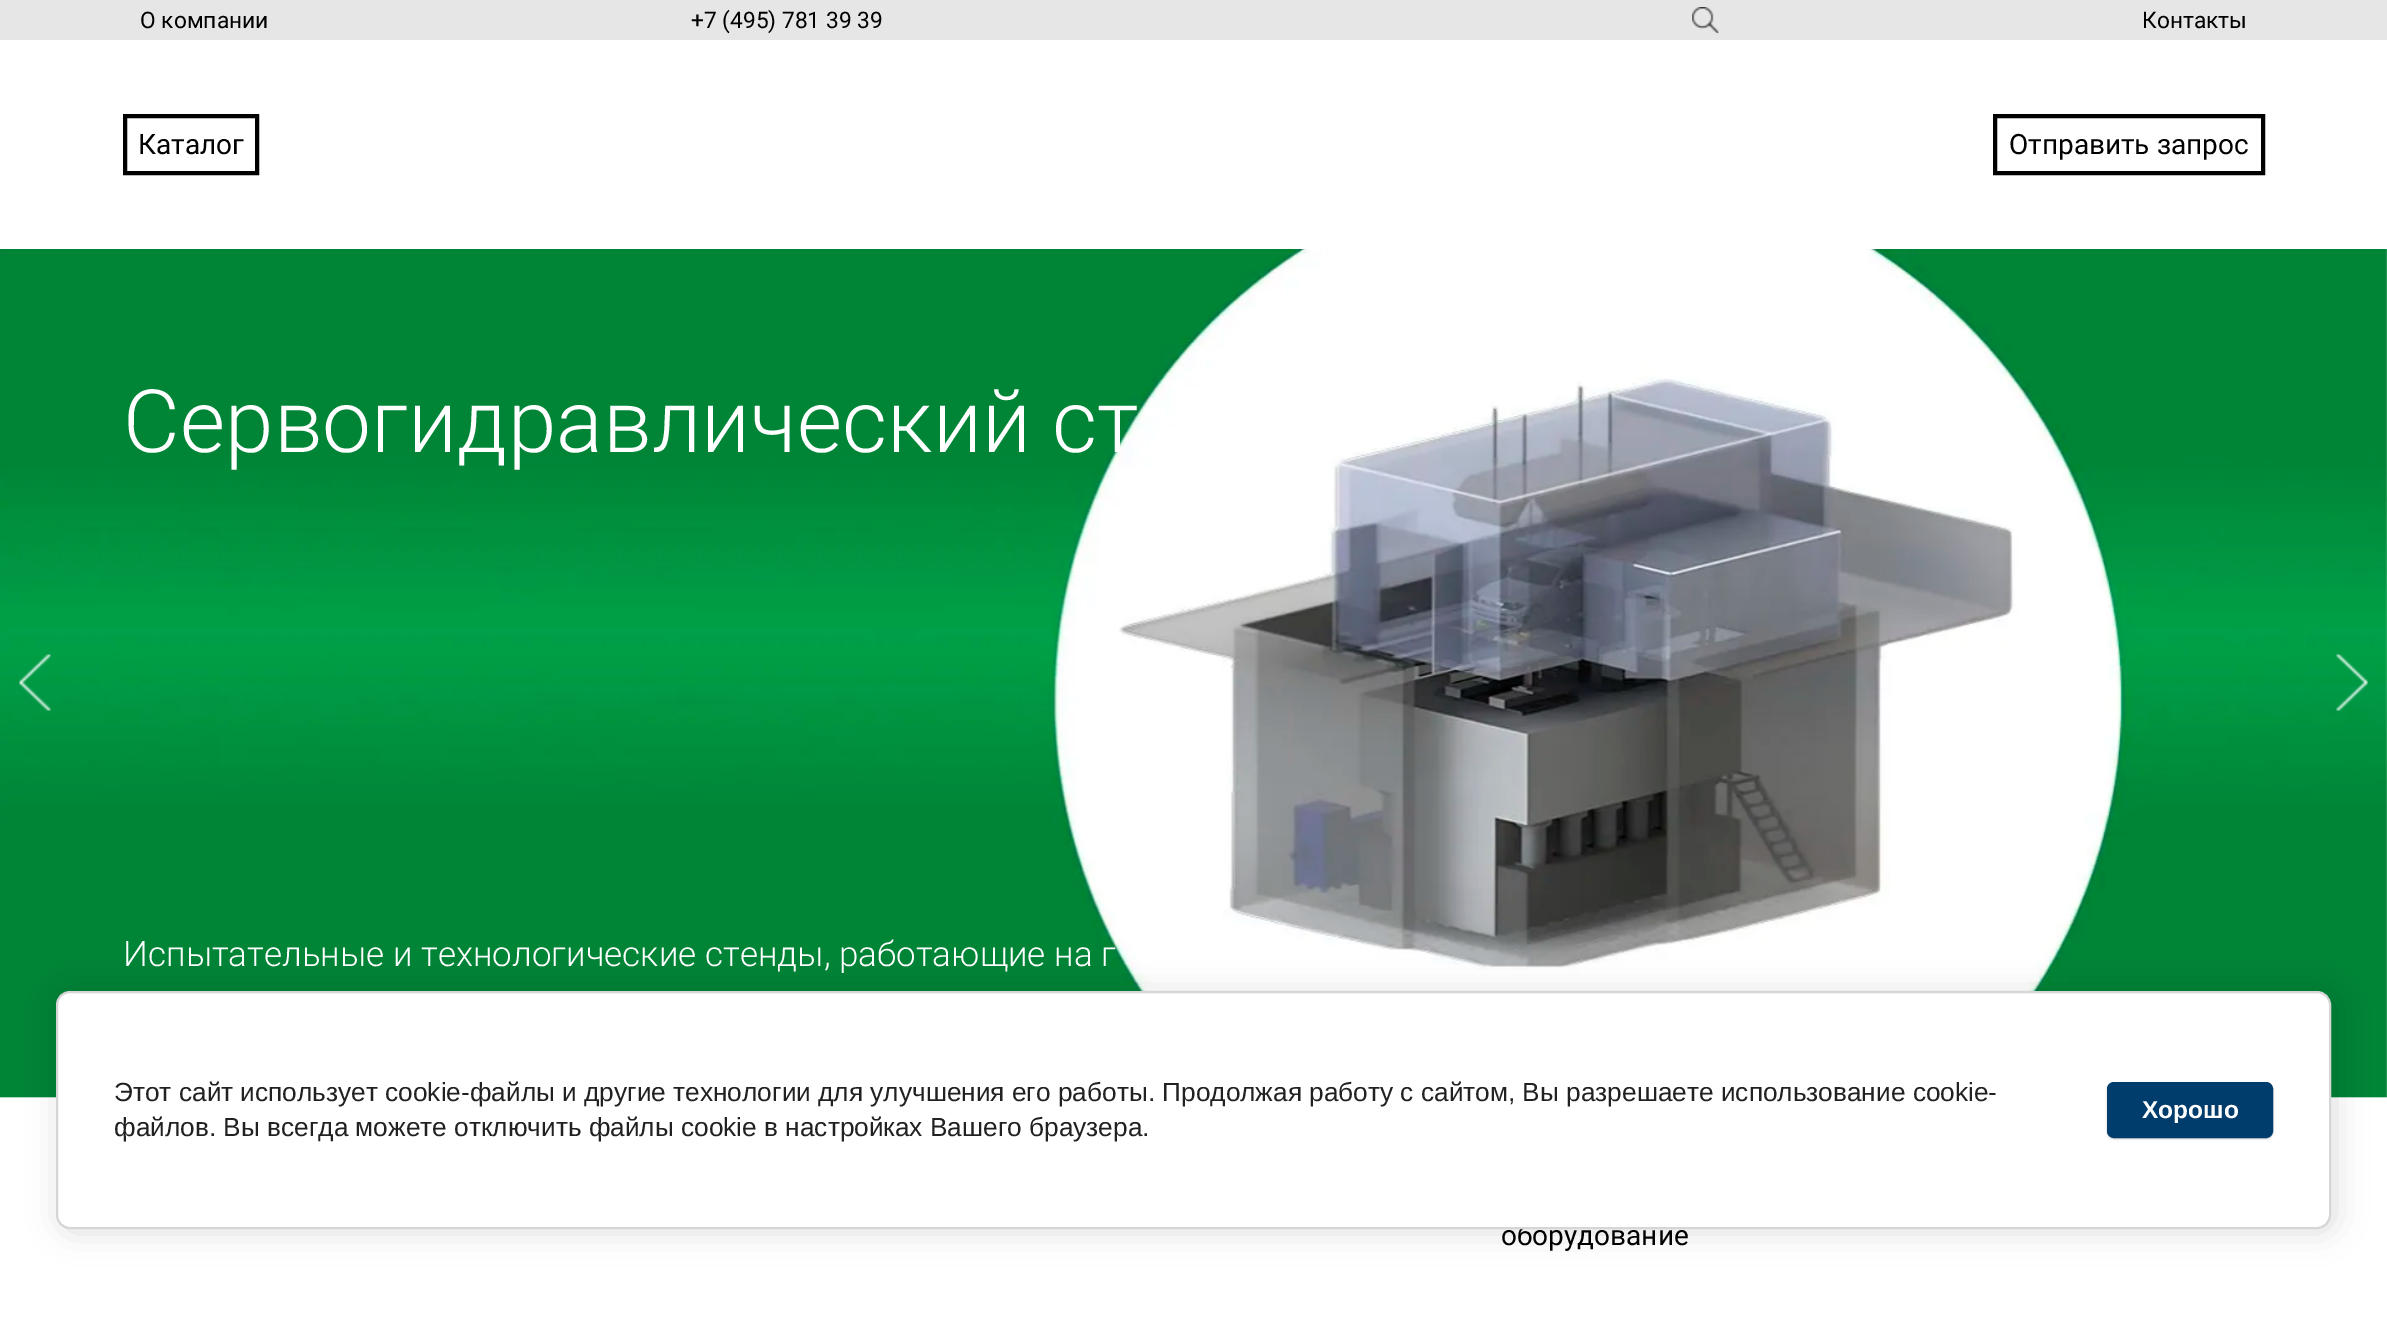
%!PS-Adobe-3.0
%%BoundingBox: 0 0 2387 1339
%%LanguageLevel: 3
%%Pages: 1
%%EndComments
%%BeginProlog
/setink { 3 { 255 div 3 1 roll } repeat setrgbcolor } def
/usefont { [ exch dup neg 0 0 3 -1 roll 0 0 ] selectfont } def
/drawtext { setink usefont moveto show } def
/fillbox { setink rectfill } def
/setalpha { dup .setfillconstantalpha .setstrokeconstantalpha } def
/rrect { 5 dict begin { /r /h /w /y /x } { exch def } forall
  x r add y moveto x w add y 2 copy h add r arct x w add y h add x 1 index r arct
  x y h add x y r arct x y 2 copy exch w add exch r arct closepath end } def
/softshadow { 12 dict begin { /a /b /q /h /w /y /x } { exch def } forall gsave /was 0 def
  9 -2 -9 { dup b mul 4 div /e exch def 1 sub .425 mul 2.718 exch exp 1 add a .99 .min exch div /now exch def
    1 1 now sub 1 was sub div sub setalpha /was now def
    w h .min e 2 mul add 0 gt { x e sub y e sub w e 2 mul add h e 2 mul add
      q e add b .6 mul add w h .min 2 div e add .min 0 .max rrect fill } if } for grestore end } def
/drawimage { 5 dict begin { /h /w /y /x /name } { exch def } forall
  gsave x y translate w h scale
  w h 8 [w 0 0 h 0 0] name (r) file false 3 colorimage grestore end } def
%%EndProlog
%%BeginSetup
<< /PageSize [2387 1339] /PageUsesTransparency true >> setpagedevice
%%EndSetup
%%Page: 1 1
0 .pushpdf14devicefilter
0 1339 translate 1 -1 scale
4 setmiterlimit
0 0 2387 1339 255 255 255 fillbox
0 0 2387 40 230 230 230 fillbox
(О компании) 140 28 /Roboto-Regular 22.75 0 0 0 drawtext
(+7 \(495\) 781 39 39) 691 28 /Roboto-Regular 22.75 0 0 0 drawtext
(assets/img1.rgb) 1692 7 27 27 drawimage
(Контакты) 2142 28 /Roboto-Regular 22.75 0 0 0 drawtext
4 setlinewidth
125 116 132 57 rectstroke
(Каталог) 138 154 /Roboto-Regular 28 0 0 0 drawtext
1995 116 268 57 rectstroke
(Отправить запрос) 2009 154 /Roboto-Regular 28 0 0 0 drawtext
(assets/img3.rgb) 0 249 2387 849 drawimage
(assets/img2.rgb) 19 654 32 57 drawimage
(Сервогидравлический ст) 123 452 /Roboto-Light 87.5 255 255 255 drawtext
(Испытательные и технологические стенды, работающие на г) 123 966 /Roboto-Light 35 255 255 255 drawtext
(assets/img4.rgb) 2336 654 32 57 drawimage
(оборудование) 1501 1245 /Roboto-Regular 28 0 0 0 drawtext
60 994 2275 238 14 16 0.14 softshadow
255 255 255 setink
57 992 2273 236 13 rrect gsave fill grestore
214 214 214 setink
2 setlinewidth
stroke
(Этот сайт использует cookie-файлы и другие технологии для улучшения его работы. Продолжая работу с сайтом, Вы разрешаете использование cookie-) 114 1101 /LiberationSans-Regular 26.25 33 33 33 drawtext
(файлов. Вы всегда можете отключить файлы cookie в настройках Вашего браузера.) 114 1136 /LiberationSans-Regular 26.25 33 33 33 drawtext
0 0 0 setink
2107 1083 166 56 7 1 0.2 softshadow
1 61 108 setink
2108 1083 164 54 6 rrect gsave fill grestore
stroke
(Хорошо) 2142 1118 /LiberationSans-Bold 24.5 255 255 255 drawtext
.poppdf14devicefilter showpage
%%EOF
